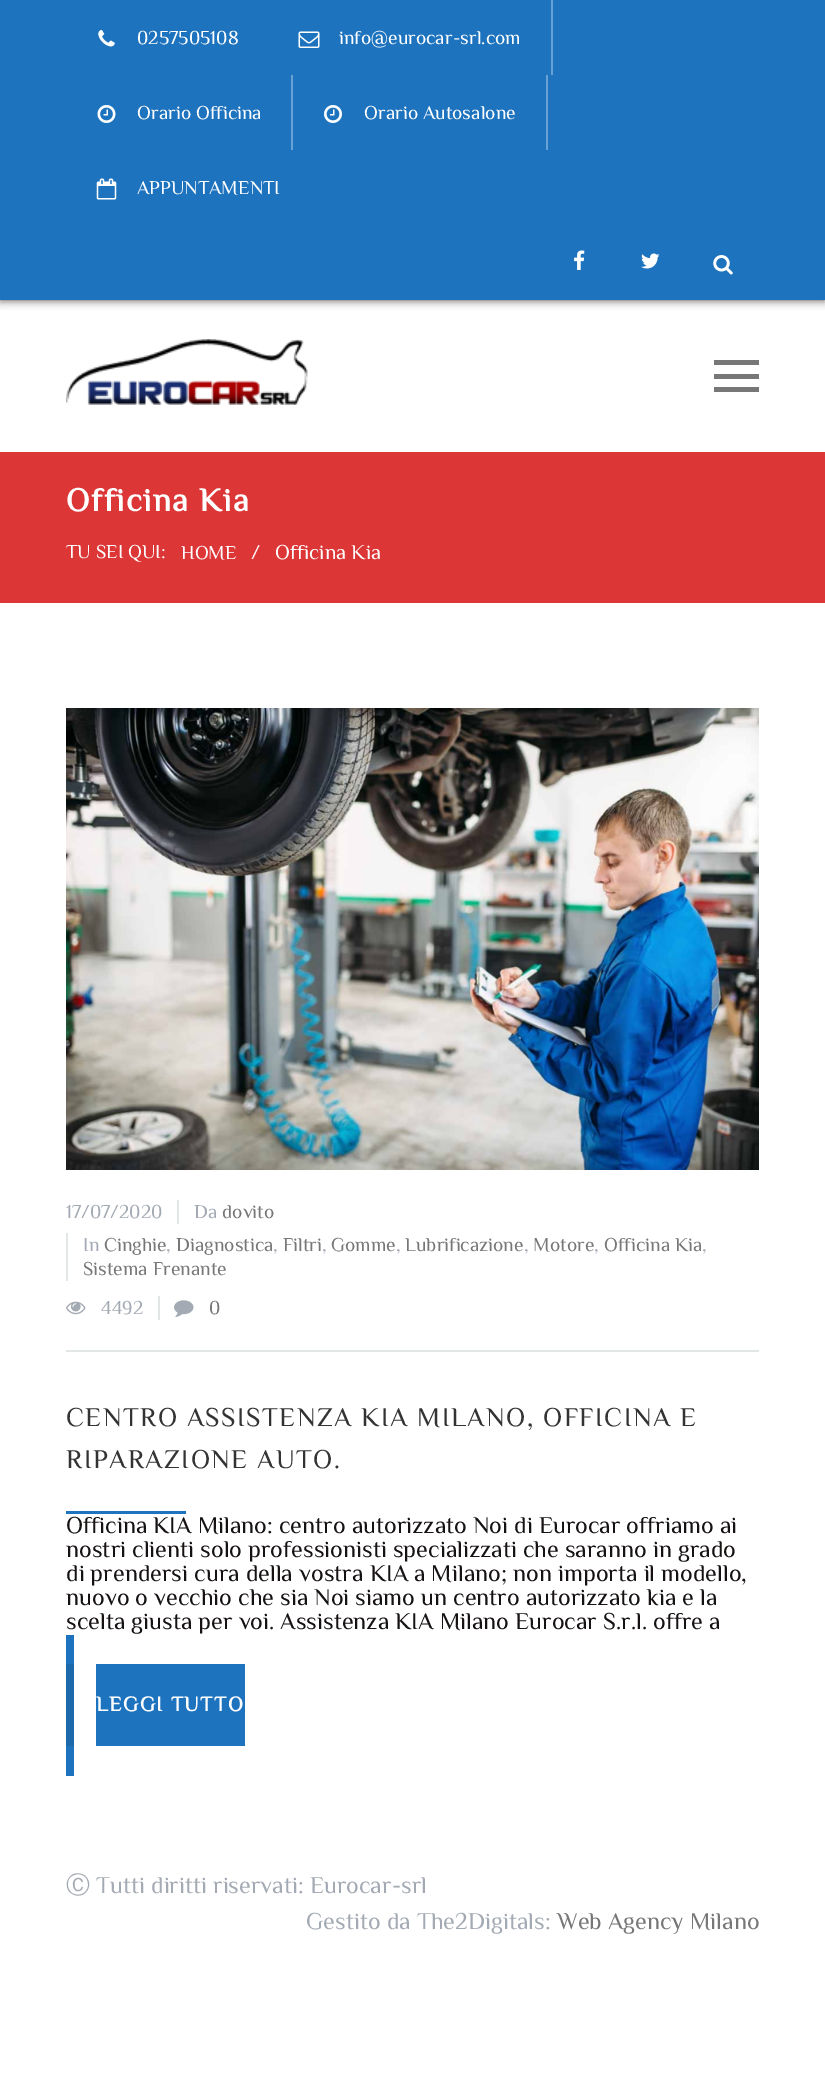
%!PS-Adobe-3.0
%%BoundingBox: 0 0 825 2075
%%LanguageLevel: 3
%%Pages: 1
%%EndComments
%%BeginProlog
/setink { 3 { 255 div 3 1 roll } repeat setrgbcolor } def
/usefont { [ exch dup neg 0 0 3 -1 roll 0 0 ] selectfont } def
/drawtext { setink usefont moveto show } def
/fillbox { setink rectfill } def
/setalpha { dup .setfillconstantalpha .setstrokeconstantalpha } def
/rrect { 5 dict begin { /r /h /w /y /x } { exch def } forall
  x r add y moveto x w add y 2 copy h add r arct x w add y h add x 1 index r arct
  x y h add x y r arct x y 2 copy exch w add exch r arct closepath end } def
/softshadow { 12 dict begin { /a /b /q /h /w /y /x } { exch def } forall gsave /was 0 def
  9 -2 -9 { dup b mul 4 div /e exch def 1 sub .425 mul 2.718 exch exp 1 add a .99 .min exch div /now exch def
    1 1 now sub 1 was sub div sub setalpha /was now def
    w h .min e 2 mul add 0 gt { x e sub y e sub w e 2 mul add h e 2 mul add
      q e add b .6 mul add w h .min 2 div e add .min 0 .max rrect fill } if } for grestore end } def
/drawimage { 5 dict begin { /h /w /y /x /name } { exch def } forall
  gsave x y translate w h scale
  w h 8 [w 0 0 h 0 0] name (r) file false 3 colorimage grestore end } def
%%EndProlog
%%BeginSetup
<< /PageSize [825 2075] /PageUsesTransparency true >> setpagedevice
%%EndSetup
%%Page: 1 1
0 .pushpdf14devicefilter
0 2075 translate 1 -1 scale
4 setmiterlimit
0 0 825 2075 255 255 255 fillbox
78 69 69 setink
0 0 825 300 0 4.5 1 softshadow
0 0 825 300 30 115 190 fillbox
(assets/img1.rgb) 98 30 17 17 drawimage
(0257505108) 137 44 /Philosopher-Regular 19.5 255 255 255 drawtext
551 0 2 75 104 161 211 fillbox
(assets/img2.rgb) 298 31 22 17 drawimage
(info@eurocar-srl.com) 339 44 /Philosopher-Regular 19.5 255 255 255 drawtext
291 75 2 75 104 161 211 fillbox
(assets/img3.rgb) 97 105 19 18 drawimage
(Orario Officina) 137 119 /Philosopher-Regular 19.5 255 255 255 drawtext
546 75 2 75 104 161 211 fillbox
(assets/img4.rgb) 324 105 18 18 drawimage
(Orario Autosalone) 364 119 /Philosopher-Regular 19.5 255 255 255 drawtext
(assets/img5.rgb) 96 178 21 22 drawimage
(APPUNTAMENTI) 137 194 /Philosopher-Regular 19.5 255 255 255 drawtext
(assets/img6.rgb) 574 250 11 20 drawimage
(assets/img7.rgb) 641 253 19 16 drawimage
(assets/img8.rgb) 713 255 20 20 drawimage
(assets/img9.rgb) 66 339 242 66 drawimage
714 360 45 5 119 119 119 fillbox
714 374 45 5 119 119 119 fillbox
714 387 45 5 119 119 119 fillbox
0 452 825 151 220 54 54 fillbox
/Philosopher-Bold 33 usefont
255 255 255 setink
66 511 moveto 1.5 0 (Officina Kia) ashow
(TU SEI QUI:) 66 558 /Philosopher-Regular 19.5 255 255 255 drawtext
(HOME) 181 559 /Philosopher-Regular 19.5 255 255 255 drawtext
(/) 251 559 /Philosopher-Regular 21 255 255 255 drawtext
(Officina Kia) 275 559 /Philosopher-Regular 21 255 255 255 drawtext
(assets/img10.rgb) 66 708 693 462 drawimage
66 1350 693 2 226 230 231 fillbox
(17/07/2020) 66 1218 /Philosopher-Regular 19.5 164 170 179 drawtext
177 1200 2 24 226 230 231 fillbox
(Da) 194 1218 /Philosopher-Regular 19.5 164 170 179 drawtext
(dovito) 222 1218 /Philosopher-Regular 19.5 119 119 119 drawtext
66 1233 2 48 226 230 231 fillbox
(In) 83 1251 /Philosopher-Regular 19.5 164 170 179 drawtext
(Cinghie) 104 1251 /Philosopher-Regular 19.5 119 119 119 drawtext
(,) 166 1251 /Philosopher-Regular 19.5 164 170 179 drawtext
(Diagnostica) 176 1251 /Philosopher-Regular 19.5 119 119 119 drawtext
(,) 273 1251 /Philosopher-Regular 19.5 164 170 179 drawtext
(Filtri) 283 1251 /Philosopher-Regular 19.5 119 119 119 drawtext
(,) 322 1251 /Philosopher-Regular 19.5 164 170 179 drawtext
(Gomme) 331 1251 /Philosopher-Regular 19.5 119 119 119 drawtext
(,) 396 1251 /Philosopher-Regular 19.5 164 170 179 drawtext
(Lubrificazione) 405 1251 /Philosopher-Regular 19.5 119 119 119 drawtext
(,) 524 1251 /Philosopher-Regular 19.5 164 170 179 drawtext
(Motore) 533 1251 /Philosopher-Regular 19.5 119 119 119 drawtext
(,) 594 1251 /Philosopher-Regular 19.5 164 170 179 drawtext
(Officina Kia) 604 1251 /Philosopher-Regular 19.5 119 119 119 drawtext
(,) 702 1251 /Philosopher-Regular 19.5 164 170 179 drawtext
(Sistema Frenante) 83 1275 /Philosopher-Regular 19.5 119 119 119 drawtext
(assets/img11.rgb) 66 1301 20 14 drawimage
(4492) 101 1314 /Philosopher-Regular 19.5 164 170 179 drawtext
158 1296 2 24 226 230 231 fillbox
(assets/img12.rgb) 174 1300 20 17 drawimage
(0) 209 1314 /Philosopher-Regular 19.5 119 119 119 drawtext
/Philosopher-Regular 27 usefont
51 51 51 setink
66 1426 moveto 1.5 0 (CENTRO ASSISTENZA KIA MILANO, OFFICINA E) ashow
66 1468 moveto 1.5 0 (RIPARAZIONE AUTO.) ashow
66 1511 120 3 30 115 190 fillbox
(Officina KIA Milano: centro autorizzato Noi di Eurocar offriamo ai) 66 1533 /Philosopher-Regular 24 22 18 18 drawtext
(nostri clienti solo professionisti specializzati che saranno in grado) 66 1557 /Philosopher-Regular 24 22 18 18 drawtext
(di prendersi cura della vostra KIA a Milano; non importa il modello,) 66 1581 /Philosopher-Regular 24 22 18 18 drawtext
(nuovo o vecchio che sia Noi siamo un centro autorizzato kia e la) 66 1605 /Philosopher-Regular 24 22 18 18 drawtext
(scelta giusta per voi. Assistenza KIA Milano Eurocar S.r.l. offre a) 66 1629 /Philosopher-Regular 24 22 18 18 drawtext
66 1635 8 141 30 115 190 fillbox
96 1664 149 82 30 115 190 fillbox
66 1664 8 82 27 104 171 fillbox
/Philosopher-Bold 21 usefont
255 255 255 setink
96 1711 moveto 1.5 0 (LEGGI TUTTO) ashow
(Ⓒ) 66 1893 /WenQuanYiZenHei-Medium 24 164 170 179 drawtext
(Tutti diritti riservati: Eurocar-srl) 96 1893 /Philosopher-Regular 24 164 170 179 drawtext
(Gestito da The2Digitals:) 306 1929 /Philosopher-Regular 24 164 170 179 drawtext
(Web Agency Milano) 557 1929 /Philosopher-Regular 24 119 119 119 drawtext
.poppdf14devicefilter showpage
%%EOF
